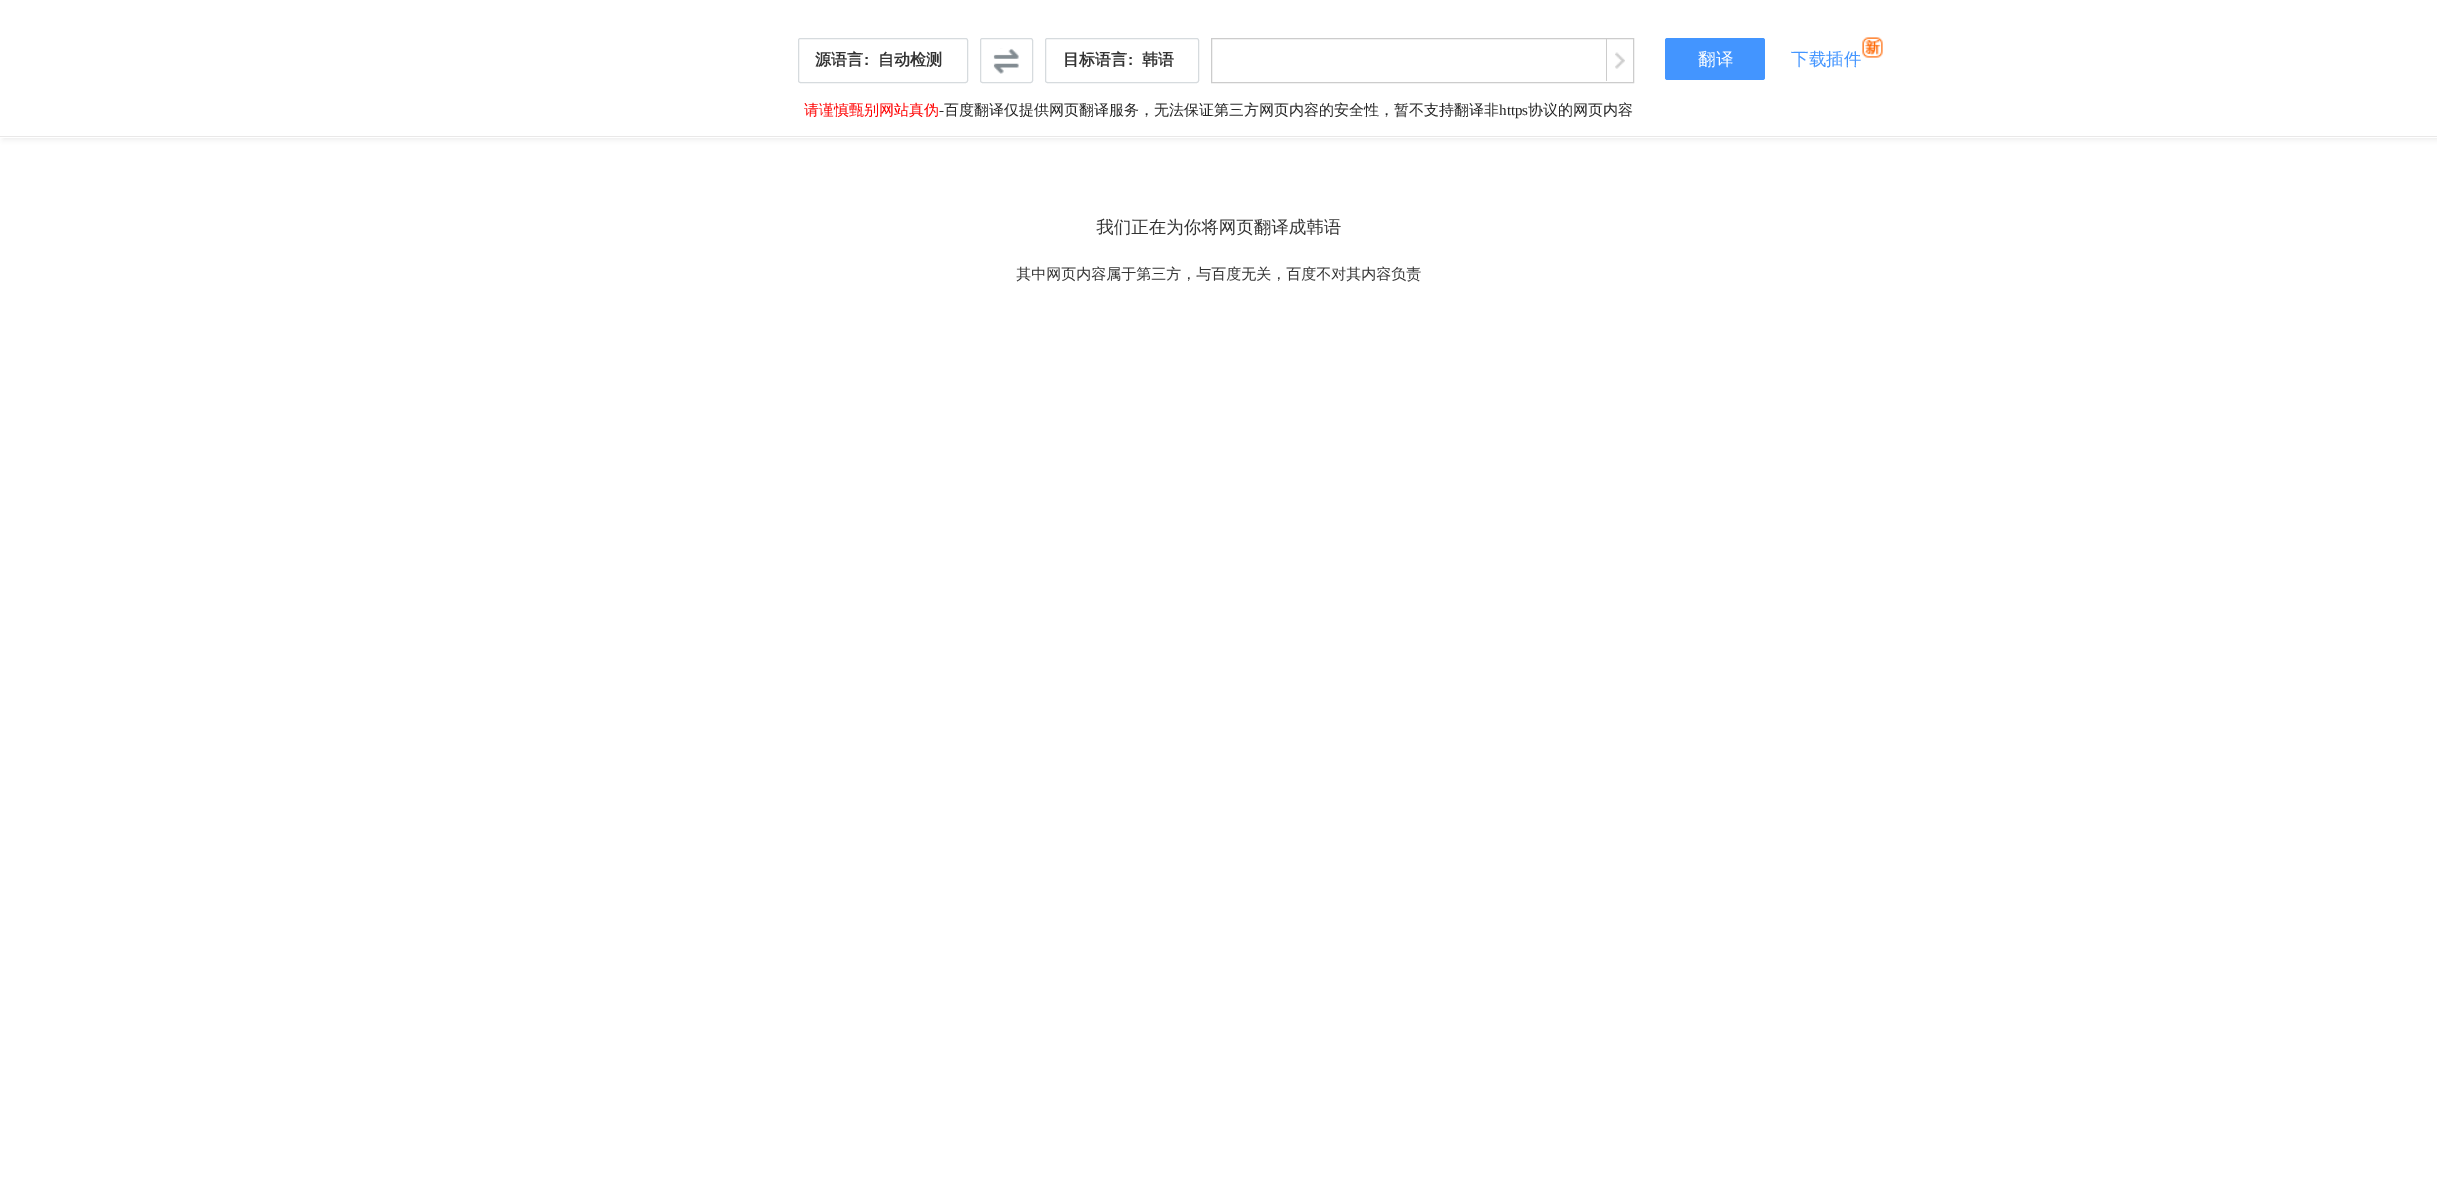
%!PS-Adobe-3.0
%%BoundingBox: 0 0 2437 1196
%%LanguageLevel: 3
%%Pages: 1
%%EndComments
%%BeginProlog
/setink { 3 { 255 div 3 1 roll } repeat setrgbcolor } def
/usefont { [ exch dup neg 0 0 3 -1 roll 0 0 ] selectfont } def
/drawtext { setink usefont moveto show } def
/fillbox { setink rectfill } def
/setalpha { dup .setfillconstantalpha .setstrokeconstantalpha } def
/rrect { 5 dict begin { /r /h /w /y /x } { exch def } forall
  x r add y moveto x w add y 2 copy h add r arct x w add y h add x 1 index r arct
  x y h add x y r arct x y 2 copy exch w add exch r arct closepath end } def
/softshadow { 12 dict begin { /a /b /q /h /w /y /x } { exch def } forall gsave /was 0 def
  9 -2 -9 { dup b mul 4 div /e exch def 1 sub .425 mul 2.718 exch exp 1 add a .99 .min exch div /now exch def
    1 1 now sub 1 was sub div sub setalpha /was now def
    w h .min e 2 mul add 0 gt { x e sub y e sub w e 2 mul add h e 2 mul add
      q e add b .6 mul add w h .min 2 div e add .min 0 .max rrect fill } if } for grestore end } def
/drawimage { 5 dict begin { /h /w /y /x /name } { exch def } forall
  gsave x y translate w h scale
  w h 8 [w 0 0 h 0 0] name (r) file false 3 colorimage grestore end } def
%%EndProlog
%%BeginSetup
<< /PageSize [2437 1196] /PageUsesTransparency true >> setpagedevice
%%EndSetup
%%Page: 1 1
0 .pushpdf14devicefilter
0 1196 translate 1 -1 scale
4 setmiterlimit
0 0 2437 1196 255 255 255 fillbox
238 238 238 setink
3 3 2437 137 0 2.5 1 softshadow
0 0 2437 138 255 255 255 fillbox
0 136 2437 1 233 232 232 fillbox
214 219 222 setink
798.5 38.5 169 44 2 rrect stroke
(源语言) 815 65 /WenQuanYiZenHei-Bold 16 51 51 51 drawtext
(:) 864 65 /LiberationSans-Bold 16 51 51 51 drawtext
(自动检测) 878 65 /WenQuanYiZenHei-Bold 16 51 51 51 drawtext
214 219 222 setink
980.5 38.5 52 44 2 rrect stroke
(assets/img1.rgb) 993 48 26 26 drawimage
1045.5 38.5 153 44 2 rrect stroke
(目标语言) 1063 65 /WenQuanYiZenHei-Bold 16 51 51 51 drawtext
(:) 1128 65 /LiberationSans-Bold 16 51 51 51 drawtext
(韩语) 1142 65 /WenQuanYiZenHei-Bold 16 51 51 51 drawtext
204 204 204 setink
1211.5 38.5 422 44 rectstroke
(assets/img2.rgb) 1615 52 10 17 drawimage
1606 39 1 42 204 204 204 fillbox
67 149 255 setink
1665 38 100 42 2.5 rrect fill
(翻译) 1698 65 /WenQuanYiZenHei-Medium 17.5 255 255 255 drawtext
(assets/img3.rgb) 1862 37 21 21 drawimage
(下载插件) 1791 65 /WenQuanYiZenHei-Medium 17.5 67 149 255 drawtext
(请谨慎甄别网站真伪) 804 115 /WenQuanYiZenHei-Medium 15 255 0 0 drawtext
(-) 939 115 /LiberationSerif-Regular 15 38 38 38 drawtext
(百度翻译仅提供网页翻译服务，无法保证第三方网页内容的安全性，暂不支持翻译非) 944 115 /WenQuanYiZenHei-Medium 15 38 38 38 drawtext
(https) 1499 115 /LiberationSerif-Regular 15 38 38 38 drawtext
(协议的网页内容) 1528 115 /WenQuanYiZenHei-Medium 15 38 38 38 drawtext
(assets/img4.rgb) 1016 218 405 64 drawimage
.poppdf14devicefilter showpage
%%EOF
